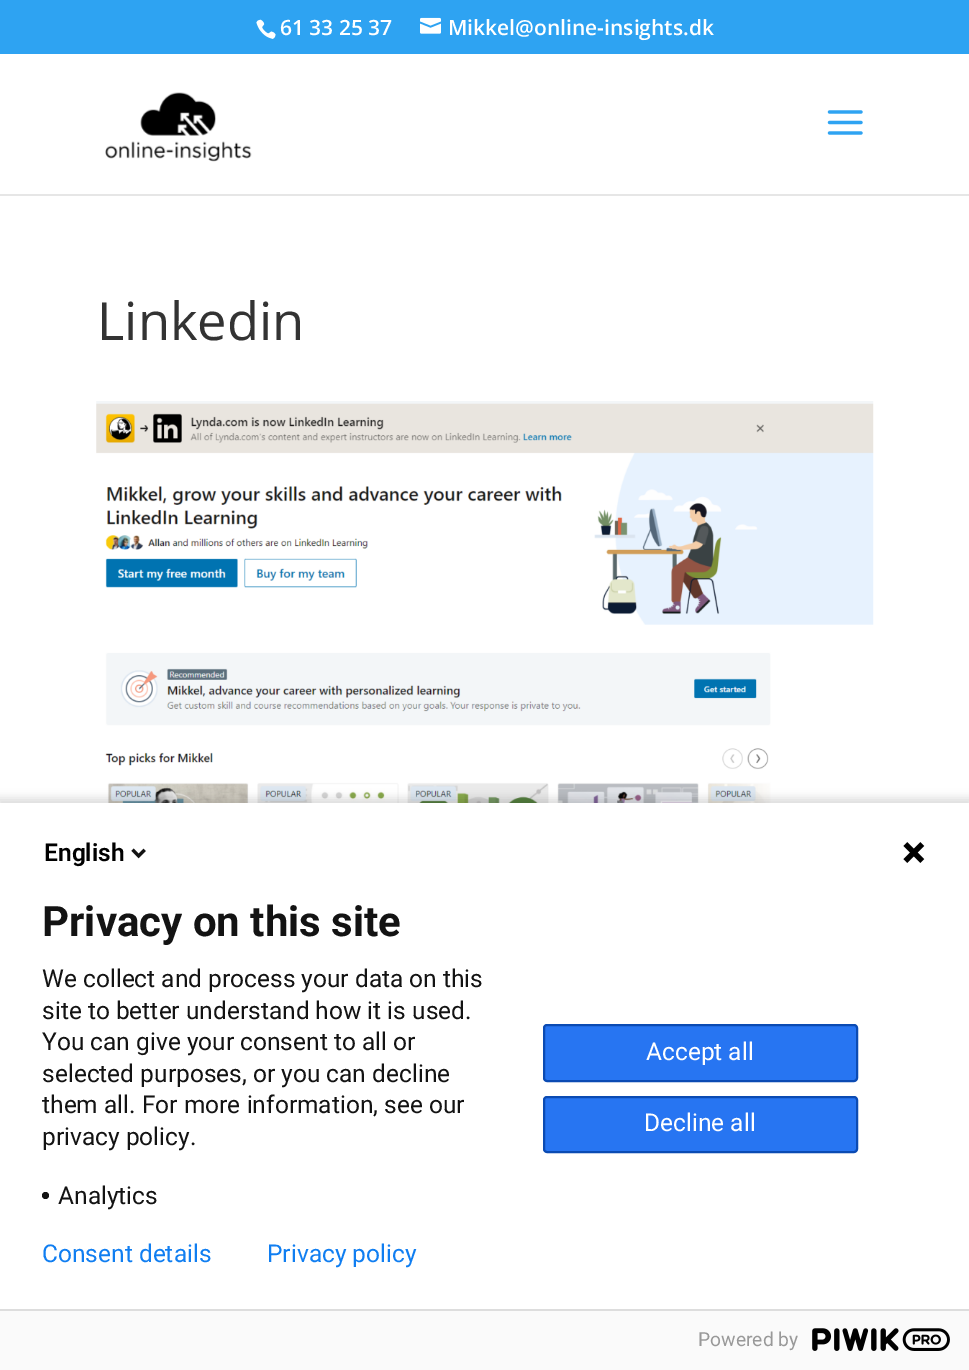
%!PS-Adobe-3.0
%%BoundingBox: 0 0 969 1370
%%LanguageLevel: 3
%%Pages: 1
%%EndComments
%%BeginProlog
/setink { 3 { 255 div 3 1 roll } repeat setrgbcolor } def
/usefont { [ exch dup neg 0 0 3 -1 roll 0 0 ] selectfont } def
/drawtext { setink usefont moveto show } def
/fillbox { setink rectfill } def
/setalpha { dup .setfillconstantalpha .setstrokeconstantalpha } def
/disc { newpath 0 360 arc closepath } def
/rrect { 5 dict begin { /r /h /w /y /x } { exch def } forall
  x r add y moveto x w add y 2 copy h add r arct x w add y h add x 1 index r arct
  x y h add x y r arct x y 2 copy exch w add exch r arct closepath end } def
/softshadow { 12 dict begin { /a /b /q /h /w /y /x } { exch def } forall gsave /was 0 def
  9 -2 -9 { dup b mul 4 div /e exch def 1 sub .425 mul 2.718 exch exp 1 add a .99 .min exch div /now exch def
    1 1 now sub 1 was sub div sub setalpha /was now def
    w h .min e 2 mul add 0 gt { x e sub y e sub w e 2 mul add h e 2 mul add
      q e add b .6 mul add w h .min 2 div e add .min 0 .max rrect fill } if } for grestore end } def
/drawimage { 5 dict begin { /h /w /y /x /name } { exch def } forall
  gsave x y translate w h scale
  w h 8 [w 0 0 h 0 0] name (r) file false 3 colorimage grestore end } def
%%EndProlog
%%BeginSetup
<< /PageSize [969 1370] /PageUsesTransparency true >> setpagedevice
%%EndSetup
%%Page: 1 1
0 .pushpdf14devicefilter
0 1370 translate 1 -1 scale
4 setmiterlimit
0 0 969 1370 255 255 255 fillbox
0 0 969 54 46 163 242 fillbox
(assets/img1.rgb) 256 19 20 20 drawimage
(61 33 25 37) 280 35 /OpenSans-SemiBold 21 255 255 255 drawtext
(assets/img2.rgb) 420 17 21 17 drawimage
(Mikkel@online-insights.dk) 448 35 /OpenSans-SemiBold 21 255 255 255 drawtext
230 230 230 setink
0 194 moveto 0 196 lineto 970 196 lineto 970 56 lineto 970 194 lineto closepath fill
(assets/img3.rgb) 105 92 147 70 drawimage
(assets/img4.rgb) 827 110 36 25 drawimage
(Linkedin) 97 340 /OpenSans-Regular 52.5 51 51 51 drawtext
(assets/img5.rgb) 96 401 778 402 drawimage
0 0 0 setink
-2 798 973 571 0 4.5 0.14 softshadow
0 803 969 506 255 255 255 fillbox
(English) 44 861 /Roboto-SemiBold 24.5 0 0 0 drawtext
(assets/img6.rgb) 131 848 15 11 drawimage
(assets/img7.rgb) 903 842 22 21 drawimage
(Privacy on this site) 42 936 /Roboto-Bold 42 19 19 19 drawtext
(We collect and process your data on this) 42 987 /Roboto-Regular 24.5 19 19 19 drawtext
(site to better understand how it is used.) 42 1019 /Roboto-Regular 24.5 19 19 19 drawtext
(You can give your consent to all or) 42 1050 /Roboto-Regular 24.5 19 19 19 drawtext
(selected purposes, or you can decline) 42 1082 /Roboto-Regular 24.5 19 19 19 drawtext
(them all. For more information, see our) 42 1113 /Roboto-Regular 24.5 19 19 19 drawtext
(privacy policy.) 42 1145 /Roboto-Regular 24.5 19 19 19 drawtext
45.5 1195.5 3.5 disc fill
(Analytics) 58 1204 /Roboto-Regular 24.5 19 19 19 drawtext
39 117 242 setink
544 1025 313 56 3 rrect gsave fill grestore
11 75 179 setink
2 setlinewidth
stroke
(Accept all) 646 1060 /Roboto-Regular 24.5 255 255 255 drawtext
39 117 242 setink
544 1097 313 55 3 rrect gsave fill grestore
11 75 179 setink
stroke
(Decline all) 644 1131 /Roboto-Regular 24.5 255 255 255 drawtext
(Consent details) 42 1262 /Roboto-Regular 24.5 16 126 241 drawtext
(Privacy policy) 267 1262 /Roboto-Regular 24.5 16 126 241 drawtext
0 1311 969 59 250 250 250 fillbox
0 1309 969 2 221 221 221 fillbox
(Powered by) 698 1346 /Roboto-Regular 19.25 153 153 153 drawtext
(assets/img8.rgb) 812 1328 138 23 drawimage
.poppdf14devicefilter showpage
%%EOF
